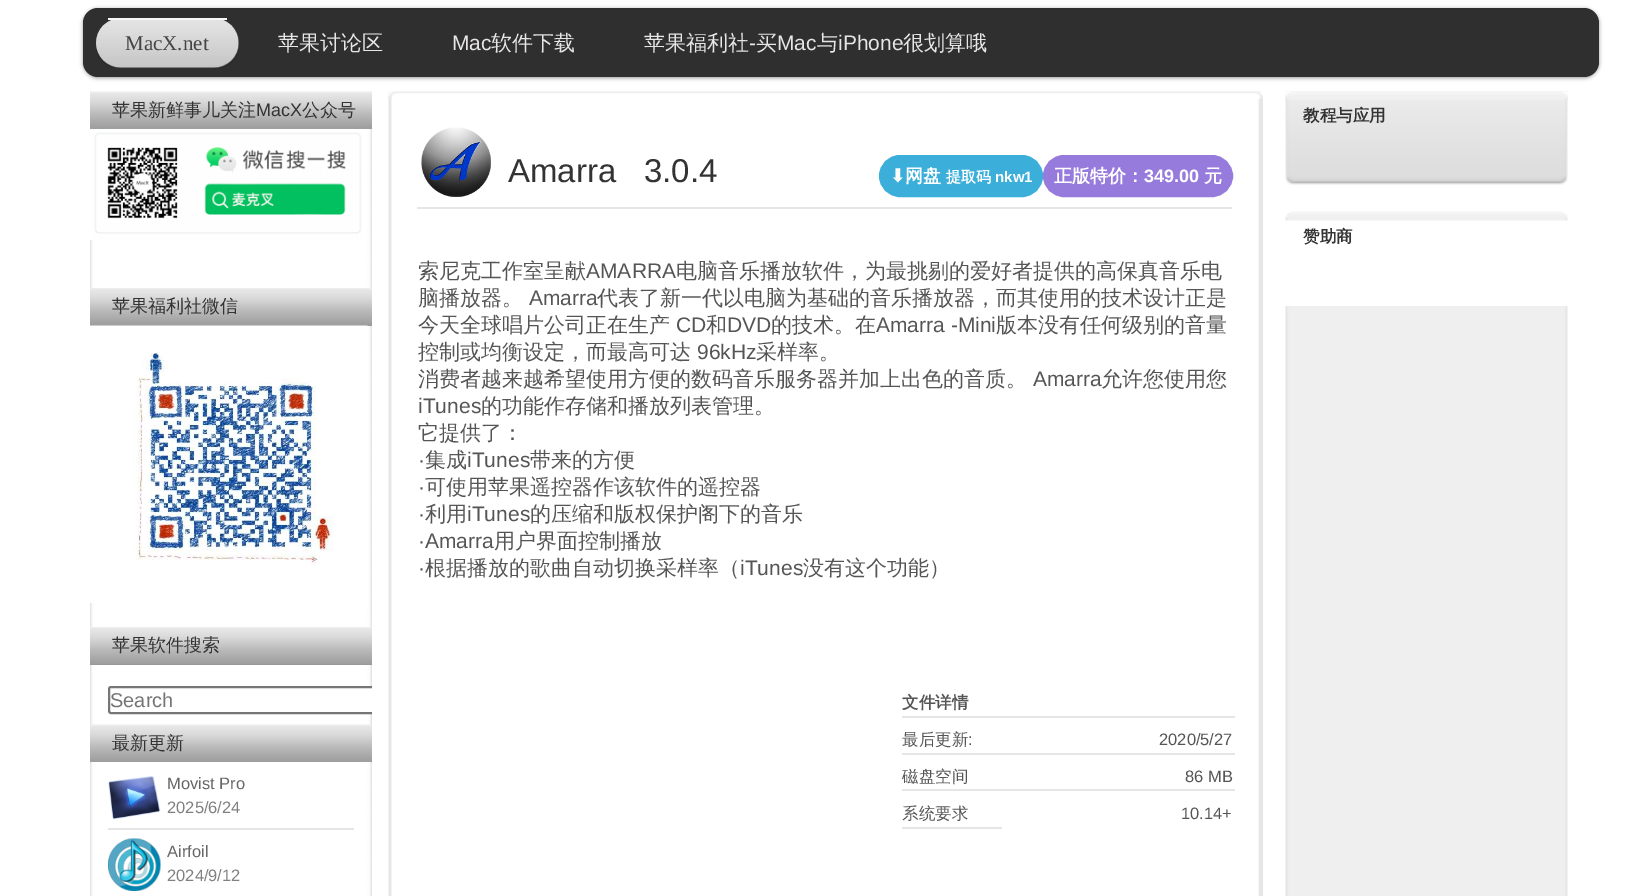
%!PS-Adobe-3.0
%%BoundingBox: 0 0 1633 896
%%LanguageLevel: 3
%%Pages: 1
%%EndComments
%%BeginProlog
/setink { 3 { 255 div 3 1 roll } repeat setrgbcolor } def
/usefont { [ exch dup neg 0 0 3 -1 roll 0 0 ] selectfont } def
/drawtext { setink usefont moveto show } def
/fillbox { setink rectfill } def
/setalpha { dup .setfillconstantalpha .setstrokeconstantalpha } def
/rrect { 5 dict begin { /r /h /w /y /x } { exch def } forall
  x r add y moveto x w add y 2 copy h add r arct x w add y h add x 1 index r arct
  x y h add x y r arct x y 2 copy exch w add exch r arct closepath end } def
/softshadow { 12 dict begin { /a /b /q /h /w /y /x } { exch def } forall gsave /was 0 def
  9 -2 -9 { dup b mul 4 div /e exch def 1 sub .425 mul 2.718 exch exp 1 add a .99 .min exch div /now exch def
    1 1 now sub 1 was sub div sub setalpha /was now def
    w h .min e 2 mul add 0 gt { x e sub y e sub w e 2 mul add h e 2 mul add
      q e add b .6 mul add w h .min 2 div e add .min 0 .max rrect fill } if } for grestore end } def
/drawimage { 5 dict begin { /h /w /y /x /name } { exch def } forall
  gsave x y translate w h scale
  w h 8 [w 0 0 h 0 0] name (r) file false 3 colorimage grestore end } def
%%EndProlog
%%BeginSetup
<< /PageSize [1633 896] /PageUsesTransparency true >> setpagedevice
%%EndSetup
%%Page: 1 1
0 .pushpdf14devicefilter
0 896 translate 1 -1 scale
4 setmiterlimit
0 0 1633 896 255 255 255 fillbox
0 0 0 setink
83 9 1516 69 15 2 0.4 softshadow
47 47 48 setink
83 8 1516 69 15 rrect fill
102 102 102 setink
96 18 143 50 25 rrect fill
(assets/img1.rgb) 96 20 143 48 drawimage
108 18 119 2 248 248 248 fillbox
(MacX.net) 125 50 /LiberationSerif-Regular 21 68 68 68 drawtext
(苹果讨论区) 278 50 /WenQuanYiZenHei-Medium 21 231 229 229 drawtext
(Mac) 452 50 /LiberationSans-Regular 21 231 229 229 drawtext
(软件下载) 491 50 /WenQuanYiZenHei-Medium 21 231 229 229 drawtext
(苹果福利社) 644 50 /WenQuanYiZenHei-Medium 21 231 229 229 drawtext
(-) 749 50 /LiberationSans-Regular 21 231 229 229 drawtext
(买) 756 50 /WenQuanYiZenHei-Medium 21 231 229 229 drawtext
(Mac) 777 50 /LiberationSans-Regular 21 231 229 229 drawtext
(与) 817 50 /WenQuanYiZenHei-Medium 21 231 229 229 drawtext
(iPhone) 838 50 /LiberationSans-Regular 21 231 229 229 drawtext
(很划算哦) 903 50 /WenQuanYiZenHei-Medium 21 231 229 229 drawtext
(assets/img2.rgb) 90 91 282 805 drawimage
(assets/img3.rgb) 90 91 282 38 drawimage
(苹果新鲜事儿关注) 112 116 /WenQuanYiZenHei-Medium 18 51 51 51 drawtext
(MacX) 256 116 /LiberationSans-Regular 18 51 51 51 drawtext
(公众号) 302 116 /WenQuanYiZenHei-Medium 18 51 51 51 drawtext
(assets/img4.rgb) 90 129 272 111 drawimage
90 325 282 1 147 147 147 fillbox
(assets/img5.rgb) 90 288 282 38 drawimage
(苹果福利社微信) 112 312 /WenQuanYiZenHei-Medium 18 51 51 51 drawtext
(assets/img6.rgb) 90 325 278 278 drawimage
90 664 282 1 147 147 147 fillbox
(assets/img5.rgb) 90 627 282 38 drawimage
(苹果软件搜索) 112 651 /WenQuanYiZenHei-Medium 18 51 51 51 drawtext
255 255 255 setink
111 686 moveto 372 686 lineto 372 714 lineto 111 714 lineto 109.5 714 108 712.5 108 711 curveto 108 689 lineto 108 687.5 109.5 686 111 686 curveto closepath fill
gsave
90 665 282 60 rectclip
118 118 118 setink
2 setlinewidth
109 687 270 26 2 rrect stroke
grestore
(Search) 110 707 /LiberationSans-Regular 20 117 117 117 drawtext
(assets/img7.rgb) 90 724 282 38 drawimage
(最新更新) 112 749 /WenQuanYiZenHei-Medium 18 51 51 51 drawtext
108 828 246 2 229 229 229 fillbox
(assets/img8.rgb) 108 776 53 44 drawimage
(Movist Pro) 167 789 /LiberationSans-Regular 16.5 102 102 102 drawtext
(2025/6/24) 167 813 /LiberationSans-Regular 16.5 128 128 128 drawtext
(assets/img9.rgb) 108 838 53 53 drawimage
(Airfoil) 167 857 /LiberationSans-Regular 16.5 102 102 102 drawtext
(2024/9/12) 167 881 /LiberationSans-Regular 16.5 128 128 128 drawtext
(assets/img10.rgb) 388 91 875 805 drawimage
(assets/img11.rgb) 388 91 875 8 drawimage
(assets/img12.rgb) 421 127 70 70 drawimage
(Amarra   3.0.4) 508 182 /LiberationSans-Regular 33 51 51 51 drawtext
59 175 218 setink
880 156 162 40 20 rrect gsave fill grestore
2 setlinewidth
stroke
(⬇) 890 182 /DejaVuSans-Bold 18 255 255 255 drawtext
(网盘) 905 182 /WenQuanYiZenHei-Bold 18 255 255 255 drawtext
(提取码) 946 182 /WenQuanYiZenHei-Bold 15 255 255 255 drawtext
(nkw1) 995 182 /LiberationSans-Bold 15 255 255 255 drawtext
150 122 220 setink
1044 156 188 40 20 rrect gsave fill grestore
stroke
(正版特价：) 1054 182 /WenQuanYiZenHei-Bold 18 255 255 255 drawtext
(349.00) 1144 182 /LiberationSans-Bold 18 255 255 255 drawtext
(元) 1204 182 /WenQuanYiZenHei-Bold 18 255 255 255 drawtext
417 207 815 2 229 229 229 fillbox
(索尼克工作室呈献) 418 278 /WenQuanYiZenHei-Medium 21 85 85 85 drawtext
(AMARRA) 586 278 /LiberationSans-Regular 21 85 85 85 drawtext
(电脑音乐播放软件，为最挑剔的爱好者提供的高保真音乐电) 676 278 /WenQuanYiZenHei-Medium 21 85 85 85 drawtext
(脑播放器。) 418 305 /WenQuanYiZenHei-Medium 21 85 85 85 drawtext
(Amarra) 529 305 /LiberationSans-Regular 21 85 85 85 drawtext
(代表了新一代以电脑为基础的音乐播放器，而其使用的技术设计正是) 597 305 /WenQuanYiZenHei-Medium 21 85 85 85 drawtext
(今天全球唱片公司正在生产) 418 332 /WenQuanYiZenHei-Medium 21 85 85 85 drawtext
(CD) 676 332 /LiberationSans-Regular 21 85 85 85 drawtext
(和) 706 332 /WenQuanYiZenHei-Medium 21 85 85 85 drawtext
(DVD) 727 332 /LiberationSans-Regular 21 85 85 85 drawtext
(的技术。在) 771 332 /WenQuanYiZenHei-Medium 21 85 85 85 drawtext
(Amarra -Mini) 876 332 /LiberationSans-Regular 21 85 85 85 drawtext
(版本没有任何级别的音量) 996 332 /WenQuanYiZenHei-Medium 21 85 85 85 drawtext
(控制或均衡设定，而最高可达) 418 359 /WenQuanYiZenHei-Medium 21 85 85 85 drawtext
(96kHz) 697 359 /LiberationSans-Regular 21 85 85 85 drawtext
(采样率。) 756 359 /WenQuanYiZenHei-Medium 21 85 85 85 drawtext
(消费者越来越希望使用方便的数码音乐服务器并加上出色的音质。) 418 386 /WenQuanYiZenHei-Medium 21 85 85 85 drawtext
(Amarra) 1033 386 /LiberationSans-Regular 21 85 85 85 drawtext
(允许您使用您) 1101 386 /WenQuanYiZenHei-Medium 21 85 85 85 drawtext
(iTunes) 418 413 /LiberationSans-Regular 21 85 85 85 drawtext
(的功能作存储和播放列表管理。) 481 413 /WenQuanYiZenHei-Medium 21 85 85 85 drawtext
(它提供了：) 418 440 /WenQuanYiZenHei-Medium 21 85 85 85 drawtext
(·) 418 467 /LiberationSans-Regular 21 85 85 85 drawtext
(集成) 425 467 /WenQuanYiZenHei-Medium 21 85 85 85 drawtext
(iTunes) 467 467 /LiberationSans-Regular 21 85 85 85 drawtext
(带来的方便) 530 467 /WenQuanYiZenHei-Medium 21 85 85 85 drawtext
(·) 418 494 /LiberationSans-Regular 21 85 85 85 drawtext
(可使用苹果遥控器作该软件的遥控器) 425 494 /WenQuanYiZenHei-Medium 21 85 85 85 drawtext
(·) 418 521 /LiberationSans-Regular 21 85 85 85 drawtext
(利用) 425 521 /WenQuanYiZenHei-Medium 21 85 85 85 drawtext
(iTunes) 467 521 /LiberationSans-Regular 21 85 85 85 drawtext
(的压缩和版权保护阁下的音乐) 530 521 /WenQuanYiZenHei-Medium 21 85 85 85 drawtext
(·Amarra) 418 548 /LiberationSans-Regular 21 85 85 85 drawtext
(用户界面控制播放) 494 548 /WenQuanYiZenHei-Medium 21 85 85 85 drawtext
(·) 418 575 /LiberationSans-Regular 21 85 85 85 drawtext
(根据播放的歌曲自动切换采样率（) 425 575 /WenQuanYiZenHei-Medium 21 85 85 85 drawtext
(iTunes) 740 575 /LiberationSans-Regular 21 85 85 85 drawtext
(没有这个功能）) 803 575 /WenQuanYiZenHei-Medium 21 85 85 85 drawtext
(文件详情) 902 708 /WenQuanYiZenHei-Bold 16.5 85 85 85 drawtext
902 716 333 2 229 229 229 fillbox
(最后更新) 902 745 /WenQuanYiZenHei-Medium 16.5 85 85 85 drawtext
(:) 968 745 /LiberationSans-Regular 16.5 85 85 85 drawtext
(2020/5/27) 1159 745 /LiberationSans-Regular 16.5 85 85 85 drawtext
902 753 333 2 229 229 229 fillbox
(磁盘空间) 902 782 /WenQuanYiZenHei-Medium 16.5 85 85 85 drawtext
(86 MB) 1185 782 /LiberationSans-Regular 16.5 85 85 85 drawtext
902 789 333 2 229 229 229 fillbox
(系统要求) 902 819 /WenQuanYiZenHei-Medium 16.5 85 85 85 drawtext
(10.14+) 1181 819 /LiberationSans-Regular 16.5 85 85 85 drawtext
902 827 100 2 229 229 229 fillbox
(assets/img13.rgb) 1285 91 283 94 drawimage
(assets/img14.rgb) 1285 91 283 9 drawimage
(教程与应用) 1303 121 /WenQuanYiZenHei-Bold 16.5 51 51 51 drawtext
(assets/img15.rgb) 1285 306 283 590 drawimage
(assets/img16.rgb) 1285 211 283 10 drawimage
(赞助商) 1303 242 /WenQuanYiZenHei-Bold 16.5 51 51 51 drawtext
.poppdf14devicefilter showpage
%%EOF
